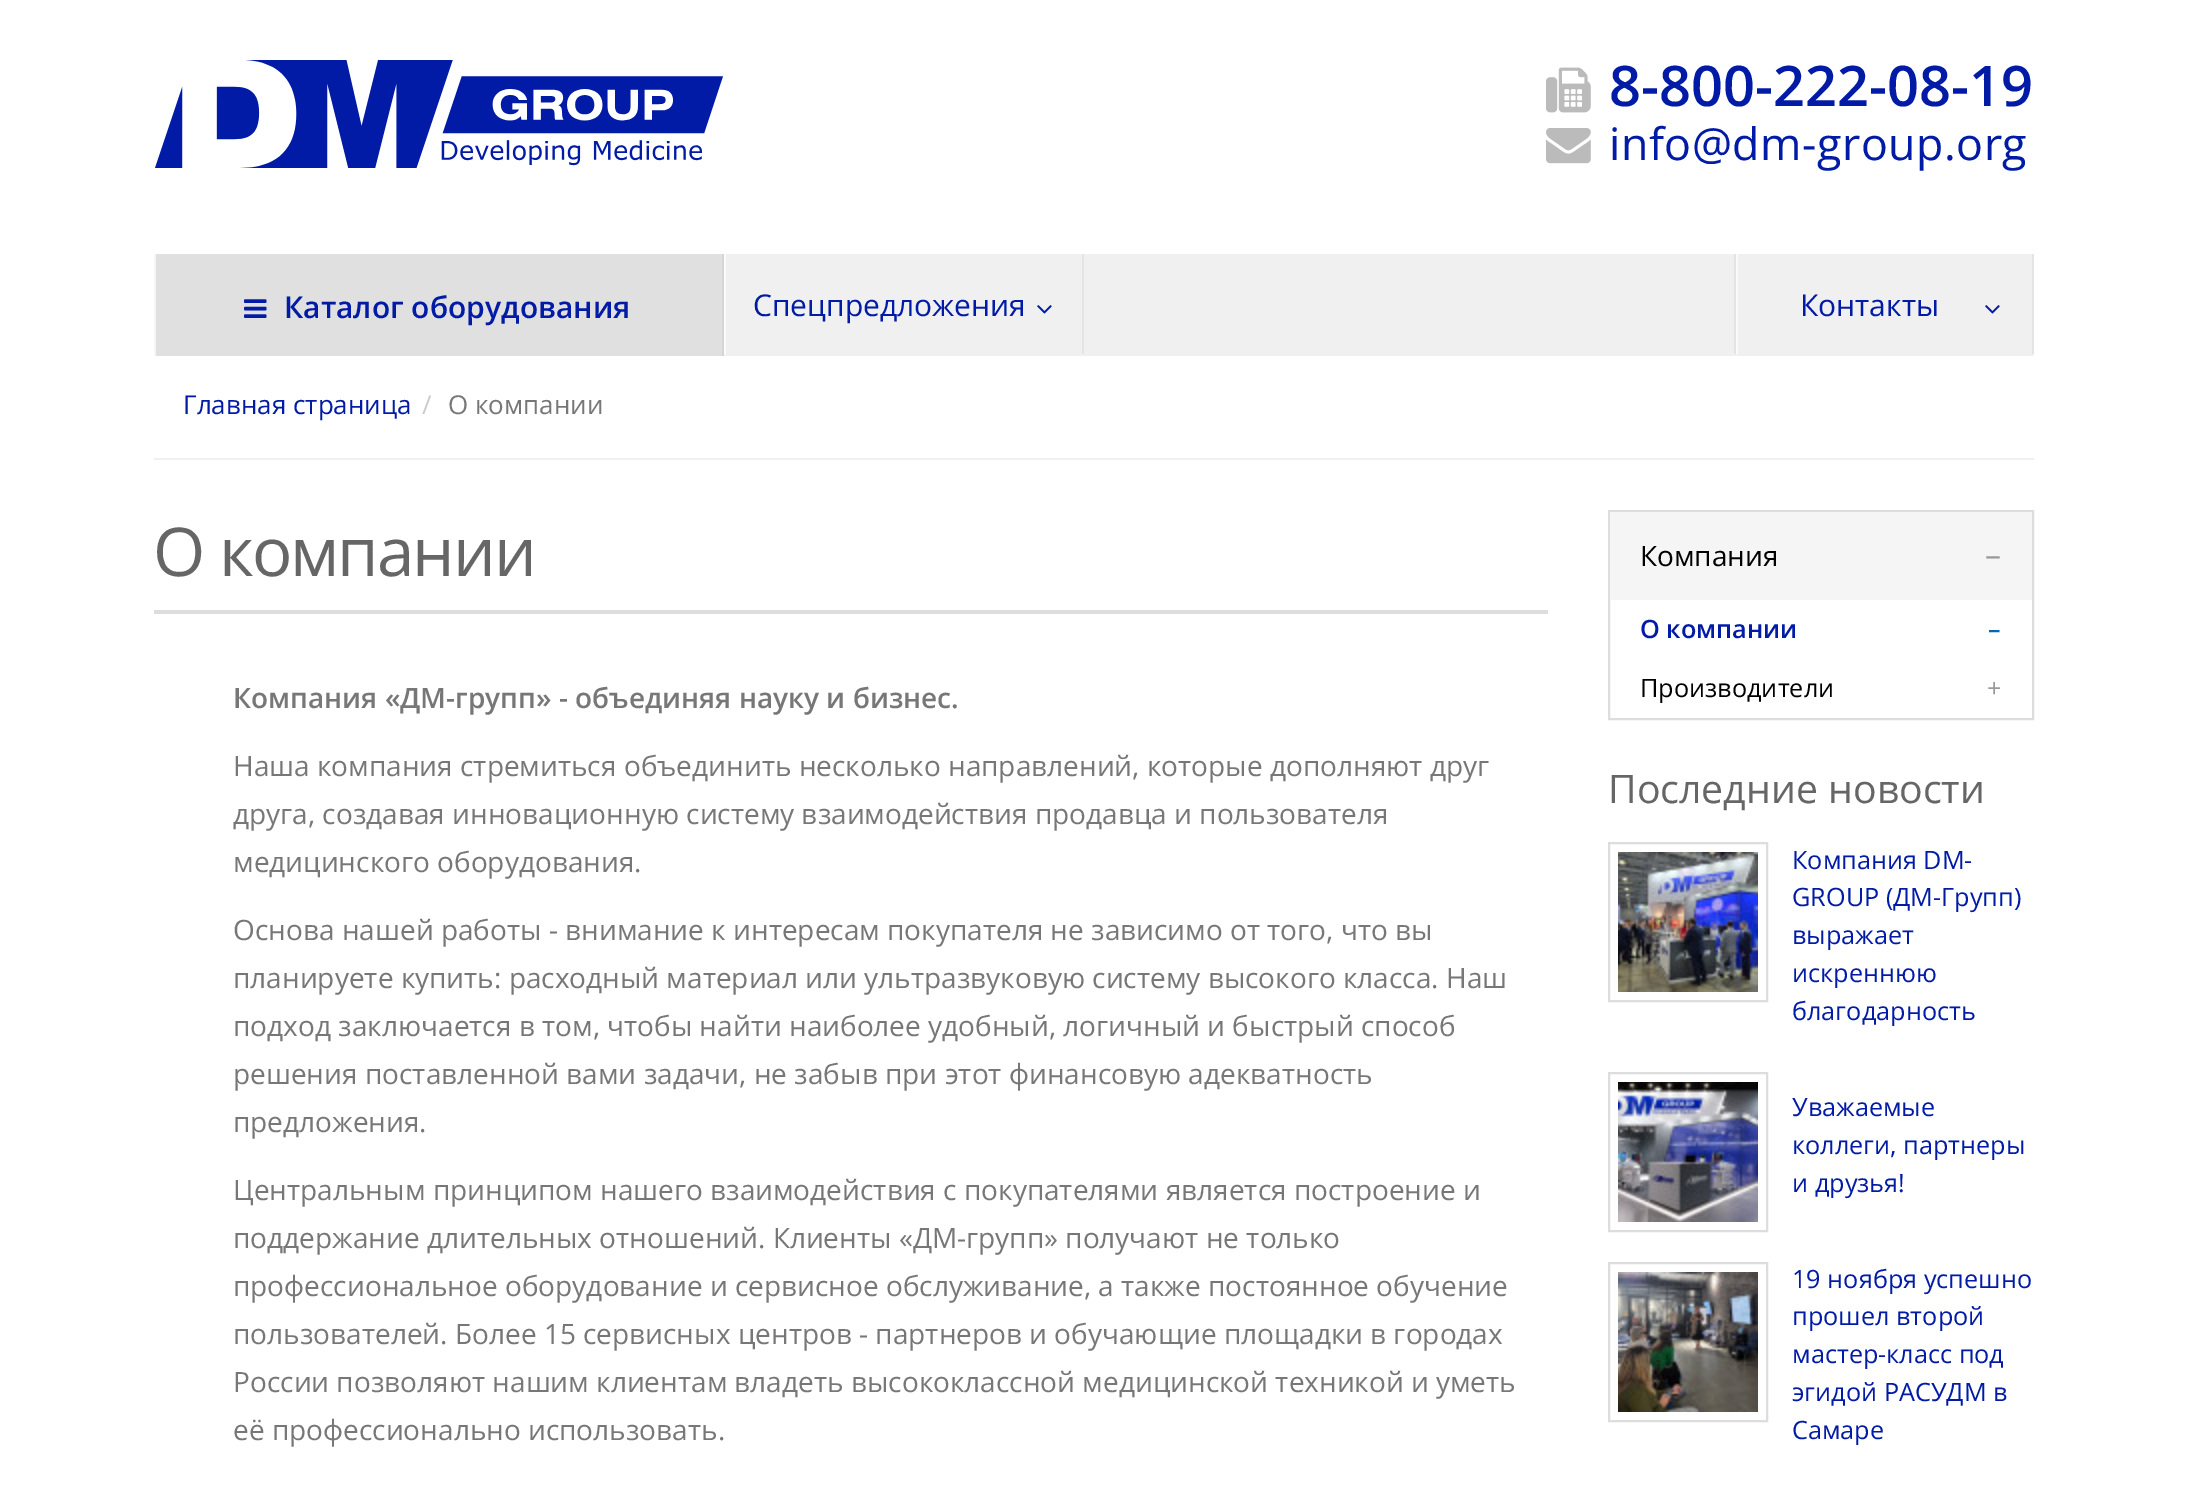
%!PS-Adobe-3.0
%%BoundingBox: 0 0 2185 1485
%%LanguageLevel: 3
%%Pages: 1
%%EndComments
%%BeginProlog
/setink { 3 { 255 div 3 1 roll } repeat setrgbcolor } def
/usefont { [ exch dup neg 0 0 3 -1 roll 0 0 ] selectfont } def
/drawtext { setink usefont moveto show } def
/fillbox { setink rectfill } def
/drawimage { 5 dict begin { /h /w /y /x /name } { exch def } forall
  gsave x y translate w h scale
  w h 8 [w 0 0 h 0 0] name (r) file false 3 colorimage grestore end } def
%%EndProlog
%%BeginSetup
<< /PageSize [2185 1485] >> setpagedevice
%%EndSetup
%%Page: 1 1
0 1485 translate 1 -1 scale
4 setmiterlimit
0 0 2185 1485 255 255 255 fillbox
(assets/img1.rgb) 155 60 568 108 drawimage
(assets/img2.rgb) 1546 67 45 46 drawimage
(8-800-222-08-19) 1609 106 /OpenSans-SemiBold 56 1 27 166 drawtext
(assets/img3.rgb) 1546 128 45 36 drawimage
/OpenSans-Regular 44.75 usefont
1609 160 moveto 0.5 0 (info@dm-group.org) ashow
726 254 1308 102 240 240 240 fillbox
724 354 2 2 242 242 242 fillbox
156 254 566 102 224 224 224 fillbox
154 254 2 102 246 246 246 fillbox
722 254 2 102 214 214 214 fillbox
(assets/img4.rgb) 244 299 23 19 drawimage
(Каталог оборудования) 284 318 /OpenSans-SemiBold 30 1 27 166 drawtext
724 254 2 100 251 251 251 fillbox
1082 254 2 100 228 228 228 fillbox
(Спецпредложения) 753 316 /OpenSans-Regular 30 1 27 166 drawtext
(assets/img5.rgb) 1037 305 15 9 drawimage
1736 254 2 100 250 250 250 fillbox
2032 254 2 100 228 228 228 fillbox
1734 254 2 100 228 228 228 fillbox
(Контакты) 1800 316 /OpenSans-Regular 30 1 27 166 drawtext
(assets/img5.rgb) 1985 305 15 9 drawimage
154 458 1880 2 240 240 240 fillbox
(Главная страница) 183 414 /OpenSans-Regular 26 1 27 166 drawtext
(/) 422 414 /OpenSans-Regular 26 204 204 204 drawtext
(О компании) 448 414 /OpenSans-Regular 26 119 119 119 drawtext
154 610 1394 4 221 221 221 fillbox
/OpenSans-Regular 67.25 usefont
102 102 102 setink
153 576 moveto -2 0 (О компании) ashow
(Компания «ДМ-групп» - объединяя науку и бизнес.) 233 708 /OpenSans-SemiBold 28 119 119 119 drawtext
(Наша компания стремиться объединить несколько направлений, которые дополняют друг) 233 776 /OpenSans-Regular 28 119 119 119 drawtext
(друга, создавая инновационную систему взаимодействия продавца и пользователя) 233 824 /OpenSans-Regular 28 119 119 119 drawtext
(медицинского оборудования.) 233 872 /OpenSans-Regular 28 119 119 119 drawtext
(Основа нашей работы - внимание к интересам покупателя не зависимо от того, что вы) 233 940 /OpenSans-Regular 28 119 119 119 drawtext
(планируете купить: расходный материал или ультразвуковую систему высокого класса. Наш) 233 988 /OpenSans-Regular 28 119 119 119 drawtext
(подход заключается в том, чтобы найти наиболее удобный, логичный и быстрый способ) 233 1036 /OpenSans-Regular 28 119 119 119 drawtext
(решения поставленной вами задачи, не забыв при этот финансовую адекватность) 233 1084 /OpenSans-Regular 28 119 119 119 drawtext
(предложения.) 233 1132 /OpenSans-Regular 28 119 119 119 drawtext
(Центральным принципом нашего взаимодействия с покупателями является построение и) 233 1200 /OpenSans-Regular 28 119 119 119 drawtext
(поддержание длительных отношений. Клиенты «ДМ-групп» получают не только) 233 1248 /OpenSans-Regular 28 119 119 119 drawtext
(профессиональное оборудование и сервисное обслуживание, а также постоянное обучение) 233 1296 /OpenSans-Regular 28 119 119 119 drawtext
(пользователей. Более 15 сервисных центров - партнеров и обучающие площадки в городах) 233 1344 /OpenSans-Regular 28 119 119 119 drawtext
(России позволяют нашим клиентам владеть высококлассной медицинской техникой и уметь) 233 1392 /OpenSans-Regular 28 119 119 119 drawtext
(её профессионально использовать.) 233 1440 /OpenSans-Regular 28 119 119 119 drawtext
221 221 221 setink
2 setlinewidth
1609 511 424 208 rectstroke
1610 512 422 88 245 245 245 fillbox
(Компания) 1640 566 /OpenSans-Regular 28 0 0 0 drawtext
(–) 1985 566 /OpenSans-Regular 32 153 153 153 drawtext
(О компании) 1640 638 /OpenSans-SemiBold 25.25 1 27 166 drawtext
(–) 1988 638 /OpenSans-SemiBold 25.25 2 104 180 drawtext
(Производители) 1640 697 /OpenSans-Regular 25.25 0 0 0 drawtext
(+) 1987 697 /OpenSans-Regular 25.25 153 153 153 drawtext
(Последние новости) 1608 803 /OpenSans-Regular 39.25 102 102 102 drawtext
221 221 221 setink
1609 843 158 158 rectstroke
(assets/img6.rgb) 1618 852 140 140 drawimage
(Компания DM-) 1792 869 /OpenSans-Regular 25.25 1 27 166 drawtext
(GROUP \(ДМ-Групп\)) 1792 906 /OpenSans-Regular 25.25 1 27 166 drawtext
(выражает) 1792 944 /OpenSans-Regular 25.25 1 27 166 drawtext
(искреннюю) 1792 982 /OpenSans-Regular 25.25 1 27 166 drawtext
(благодарность) 1792 1020 /OpenSans-Regular 25.25 1 27 166 drawtext
221 221 221 setink
1609 1073 158 158 rectstroke
(assets/img7.rgb) 1618 1082 140 140 drawimage
(Уважаемые) 1792 1116 /OpenSans-Regular 25.25 1 27 166 drawtext
(коллеги, партнеры) 1792 1154 /OpenSans-Regular 25.25 1 27 166 drawtext
(и друзья!) 1792 1192 /OpenSans-Regular 25.25 1 27 166 drawtext
221 221 221 setink
1609 1263 158 158 rectstroke
(assets/img8.rgb) 1618 1272 140 140 drawimage
(19 ноября успешно) 1792 1288 /OpenSans-Regular 25.25 1 27 166 drawtext
(прошел второй) 1792 1325 /OpenSans-Regular 25.25 1 27 166 drawtext
(мастер-класс под) 1792 1363 /OpenSans-Regular 25.25 1 27 166 drawtext
(эгидой РАСУДМ в) 1792 1401 /OpenSans-Regular 25.25 1 27 166 drawtext
(Самаре) 1792 1439 /OpenSans-Regular 25.25 1 27 166 drawtext
showpage
%%EOF
